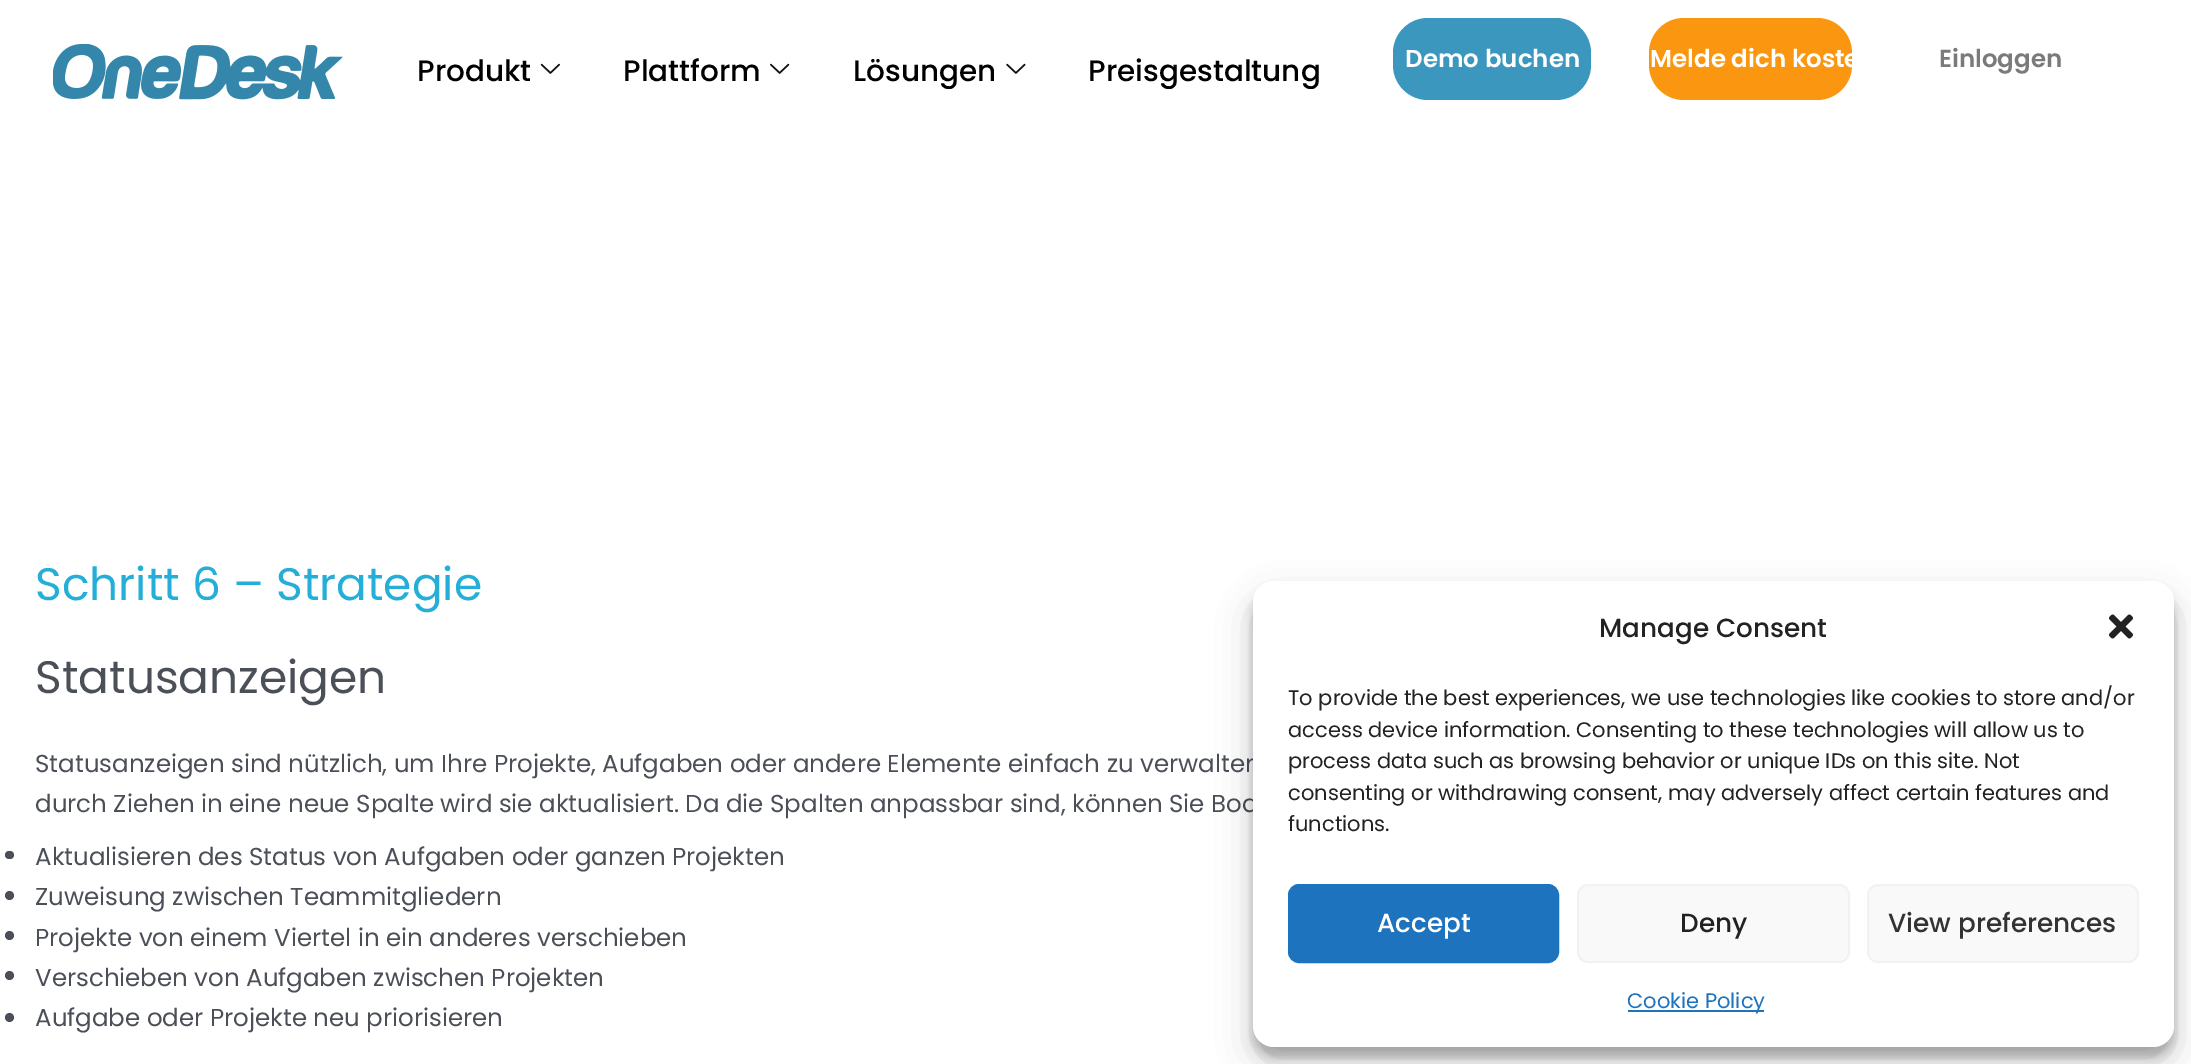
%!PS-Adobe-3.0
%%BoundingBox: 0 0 2191 1064
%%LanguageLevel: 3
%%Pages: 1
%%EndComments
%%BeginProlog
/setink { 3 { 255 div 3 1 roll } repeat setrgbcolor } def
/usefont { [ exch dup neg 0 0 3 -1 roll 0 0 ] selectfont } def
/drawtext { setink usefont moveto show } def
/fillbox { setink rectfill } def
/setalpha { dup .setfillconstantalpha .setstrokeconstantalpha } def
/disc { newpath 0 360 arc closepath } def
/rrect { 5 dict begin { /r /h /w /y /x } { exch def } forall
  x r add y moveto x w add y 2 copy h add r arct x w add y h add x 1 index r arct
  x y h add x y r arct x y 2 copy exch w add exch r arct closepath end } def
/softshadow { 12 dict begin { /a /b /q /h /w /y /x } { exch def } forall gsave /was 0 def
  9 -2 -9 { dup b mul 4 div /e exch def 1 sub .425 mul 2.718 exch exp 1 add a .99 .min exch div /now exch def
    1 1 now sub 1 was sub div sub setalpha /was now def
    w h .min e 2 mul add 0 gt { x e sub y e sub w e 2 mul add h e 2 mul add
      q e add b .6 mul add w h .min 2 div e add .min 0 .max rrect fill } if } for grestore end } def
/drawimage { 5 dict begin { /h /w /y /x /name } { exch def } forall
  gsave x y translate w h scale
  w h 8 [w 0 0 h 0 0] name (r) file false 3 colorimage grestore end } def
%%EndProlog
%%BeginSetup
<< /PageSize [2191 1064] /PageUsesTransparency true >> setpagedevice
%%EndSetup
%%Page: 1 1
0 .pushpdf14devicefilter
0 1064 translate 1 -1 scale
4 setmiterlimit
0 0 2191 1064 255 255 255 fillbox
(assets/img1.rgb) 53 44 290 56 drawimage
(Produkt) 417 81 /Poppins-Medium 29.5 0 0 0 drawtext
(assets/img2.rgb) 540 63 20 11 drawimage
(Plattform) 623 81 /Poppins-Medium 29.5 0 0 0 drawtext
(assets/img3.rgb) 770 63 20 11 drawimage
(Lösungen) 853 81 /Poppins-Medium 29.5 0 0 0 drawtext
(assets/img4.rgb) 1006 63 20 11 drawimage
(Preisgestaltung) 1088 81 /Poppins-Medium 29.5 0 0 0 drawtext
60 151 191 setink
1393 18 198 82 35 rrect fill
(Demo buchen) 1405 67 /Poppins-SemiBold 24.5 255 255 255 drawtext
250 150 16 setink
1649 18 203 82 35 rrect fill
(Melde dich koste) 1650 67 /Poppins-SemiBold 24.5 255 255 255 drawtext
(Einloggen) 1939 67 /Poppins-SemiBold 24.5 122 122 122 drawtext
(Schritt 6 – Strategie) 35 600 /Poppins-Regular 45.5 37 174 216 drawtext
(Statusanzeigen) 35 693 /Poppins-Regular 45.5 75 79 88 drawtext
(Statusanzeigen sind nützlich, um Ihre Projekte, Aufgaben oder andere Elemente einfach zu verwalten) 35 772 /Poppins-Regular 24.5 75 79 88 drawtext
(durch Ziehen in eine neue Spalte wird sie aktualisiert. Da die Spalten anpassbar sind, können Sie Boa) 35 812 /Poppins-Regular 24.5 75 79 88 drawtext
5 851 9 8 4 rrect fill
(Aktualisieren des Status von Aufgaben oder ganzen Projekten) 35 865 /Poppins-Regular 24.5 75 79 88 drawtext
9.5 895.5 4.5 disc fill
(Zuweisung zwischen Teammitgliedern) 35 905 /Poppins-Regular 24.5 75 79 88 drawtext
9.5 935.5 4.5 disc fill
(Projekte von einem Viertel in ein anderes verschieben) 35 946 /Poppins-Regular 24.5 75 79 88 drawtext
9.5 975.5 4.5 disc fill
(Verschieben von Aufgaben zwischen Projekten) 35 986 /Poppins-Regular 24.5 75 79 88 drawtext
9.5 1017.5 4.5 disc fill
(Aufgabe oder Projekte neu priorisieren) 35 1026 /Poppins-Regular 24.5 75 79 88 drawtext
0 0 0 setink
1253 592 921 465 21 5 0.23 softshadow
1253 599 921 465 21 17.5 0.19 softshadow
255 255 255 setink
1253 581 921 466 21 rrect fill
(Manage Consent) 1599 637 /Poppins-Medium 26.25 34 34 34 drawtext
(assets/img5.rgb) 2109 614 24 25 drawimage
(To provide the best experiences, we use technologies like cookies to store and/or) 1288 705 /Poppins-Regular 21 34 34 34 drawtext
(access device information. Consenting to these technologies will allow us to) 1288 737 /Poppins-Regular 21 34 34 34 drawtext
(process data such as browsing behavior or unique IDs on this site. Not) 1288 768 /Poppins-Regular 21 34 34 34 drawtext
(consenting or withdrawing consent, may adversely affect certain features and) 1288 800 /Poppins-Regular 21 34 34 34 drawtext
(functions.) 1288 831 /Poppins-Regular 21 34 34 34 drawtext
30 115 190 setink
1289 885 269 77 10 rrect gsave fill grestore
2 setlinewidth
stroke
(Accept) 1377 932 /Poppins-Medium 26.25 255 255 255 drawtext
249 249 249 setink
1578 885 271 77 10 rrect gsave fill grestore
242 242 242 setink
stroke
(Deny) 1680 932 /Poppins-Medium 26.25 34 34 34 drawtext
249 249 249 setink
1868 885 270 77 10 rrect gsave fill grestore
242 242 242 setink
stroke
(View preferences) 1888 932 /Poppins-Medium 26.25 51 51 51 drawtext
1628 1010 136 2 30 115 190 fillbox
(Cookie Policy) 1627 1008 /Poppins-Regular 21 30 115 190 drawtext
.poppdf14devicefilter showpage
%%EOF
